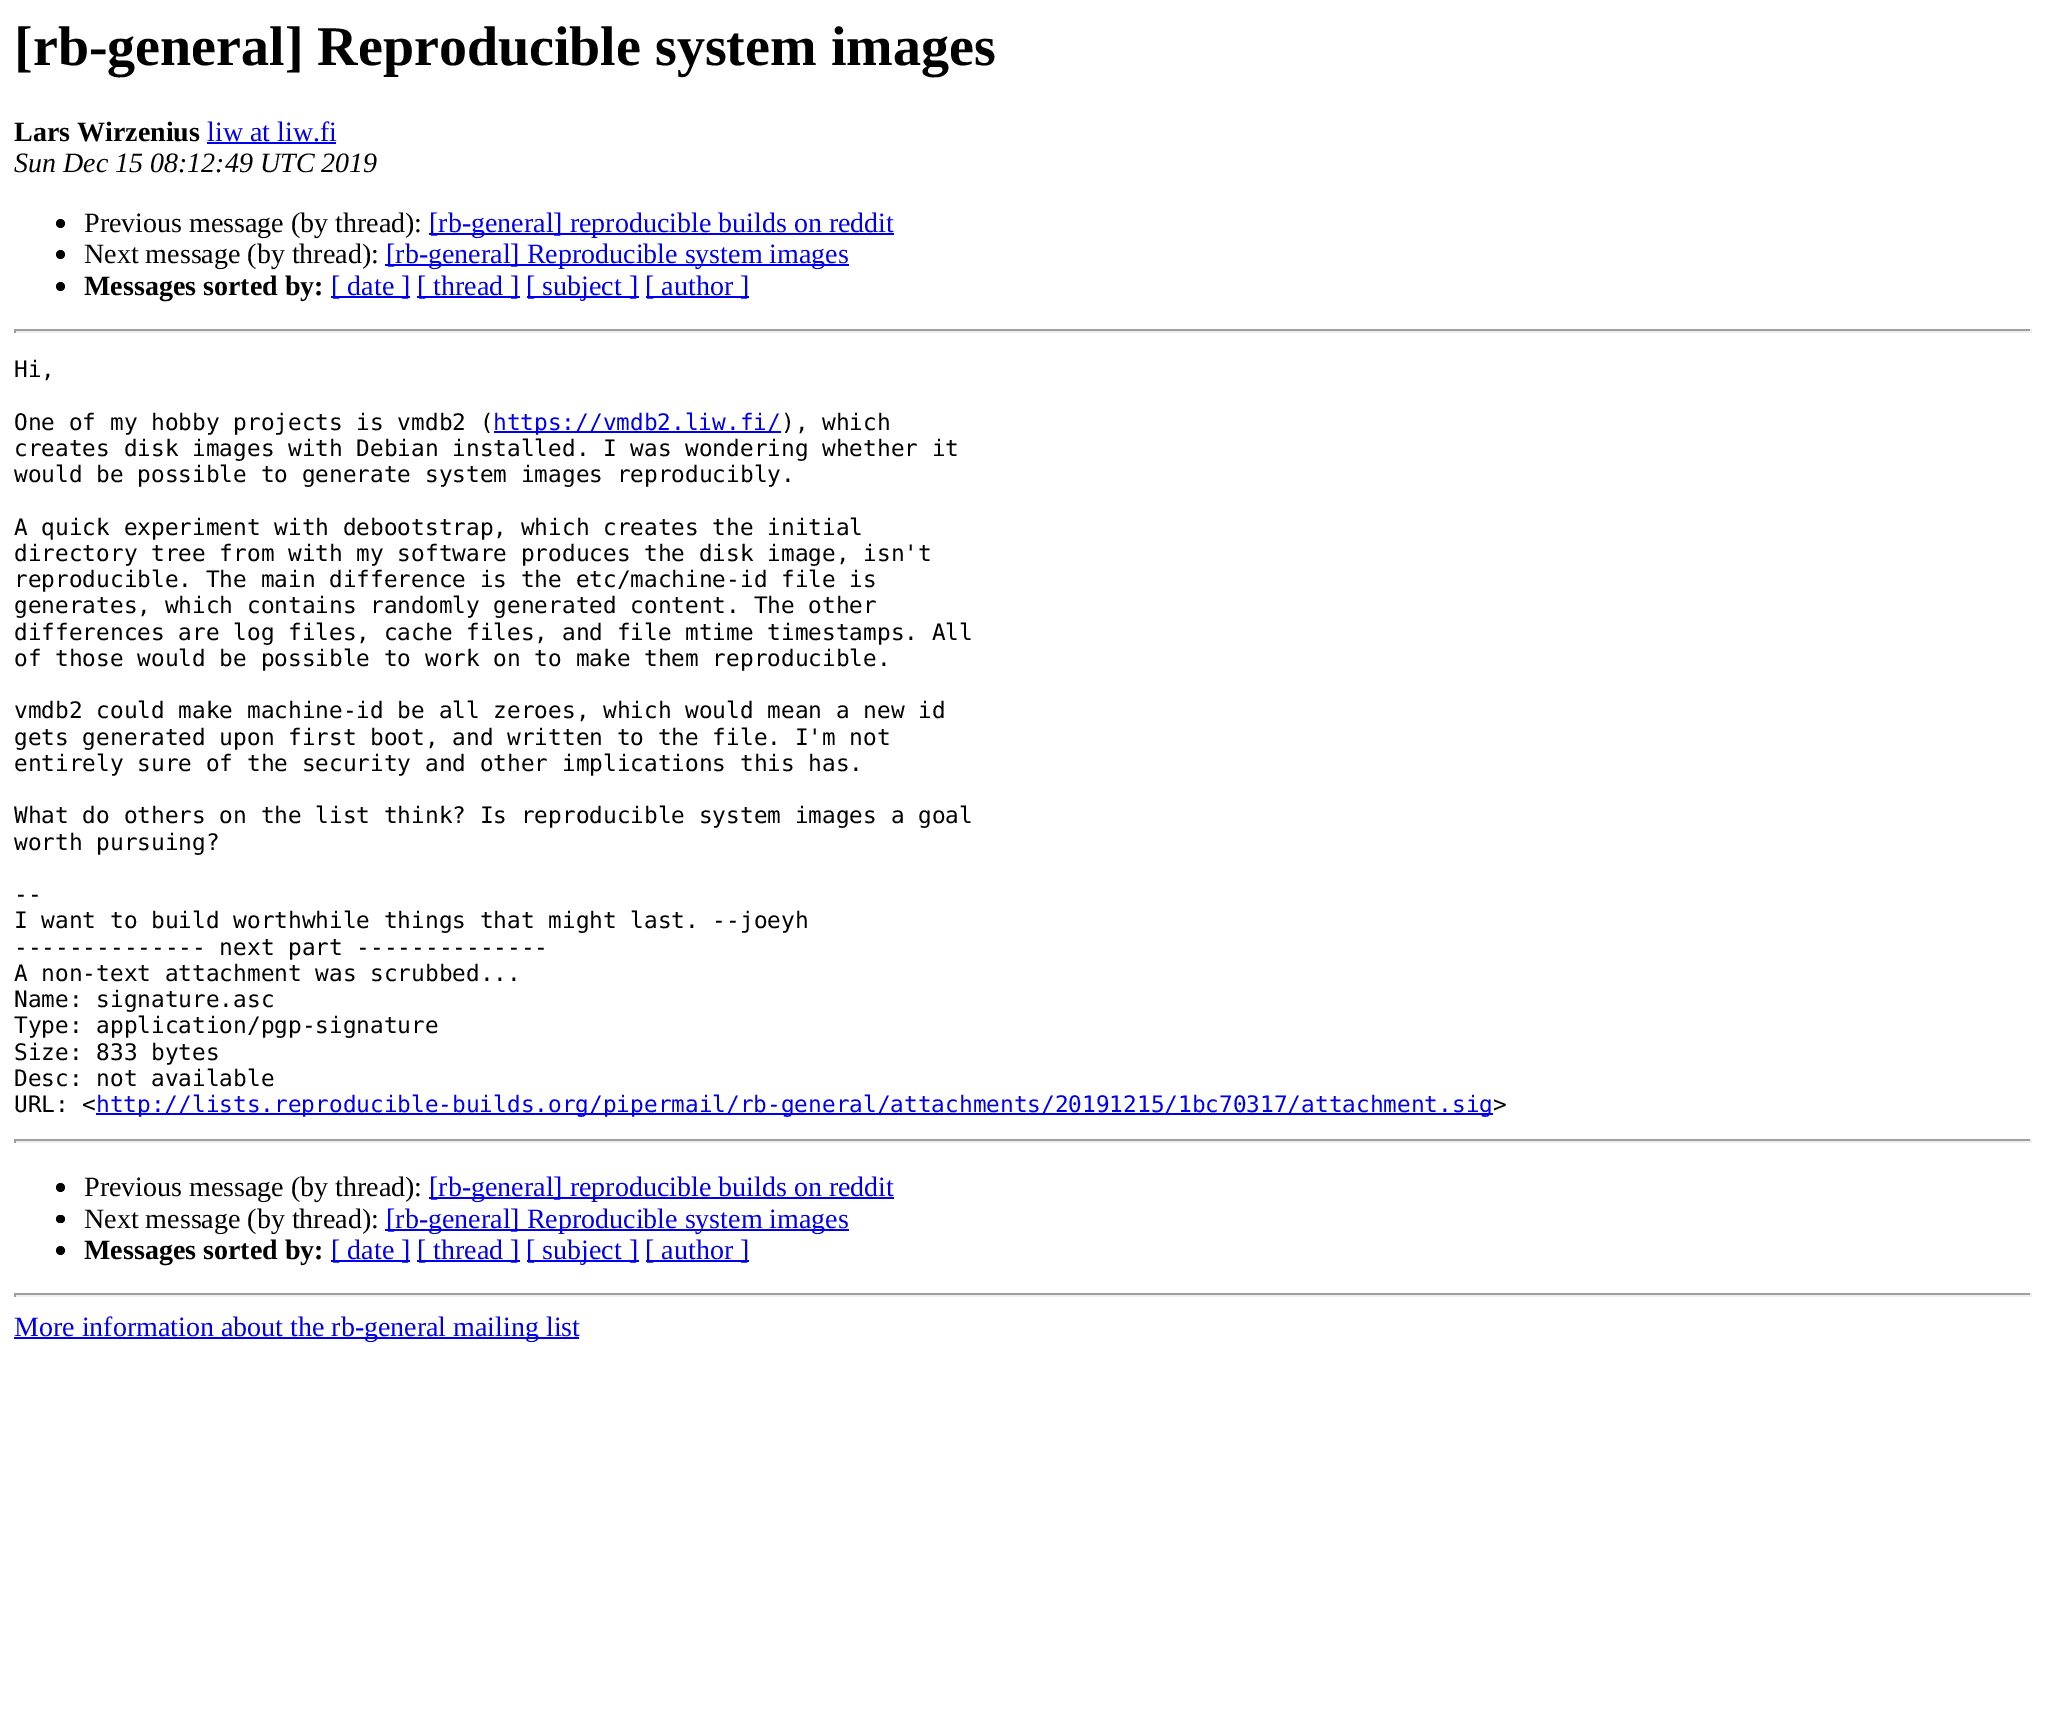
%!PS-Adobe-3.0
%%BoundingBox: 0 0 2045 1736
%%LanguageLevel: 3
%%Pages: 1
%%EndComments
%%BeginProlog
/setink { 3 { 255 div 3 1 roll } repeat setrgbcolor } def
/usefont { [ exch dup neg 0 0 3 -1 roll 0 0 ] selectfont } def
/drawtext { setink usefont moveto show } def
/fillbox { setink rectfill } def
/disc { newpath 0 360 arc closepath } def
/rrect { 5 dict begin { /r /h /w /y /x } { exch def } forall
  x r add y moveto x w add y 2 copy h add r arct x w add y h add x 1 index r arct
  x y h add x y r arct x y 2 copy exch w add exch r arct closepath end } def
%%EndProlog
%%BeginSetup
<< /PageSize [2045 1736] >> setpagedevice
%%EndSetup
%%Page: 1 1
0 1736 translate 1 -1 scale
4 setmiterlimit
0 0 2045 1736 255 255 255 fillbox
([rb-general] Reproducible system images) 14 65 /LiberationSerif-Bold 56 0 0 0 drawtext
(Lars Wirzenius) 14 141 /LiberationSerif-Bold 28 0 0 0 drawtext
(liw at liw.fi) 207 141 /LiberationSerif-Regular 28 0 0 238 drawtext
207 142 129 2 0 0 238 fillbox
(Sun Dec 15 08:12:49 UTC 2019) 14 172 /LiberationSerif-Italic 28 0 0 0 drawtext
60.5 223.5 4.5 disc fill
(Previous message \(by thread\):) 84 232 /LiberationSerif-Regular 28 0 0 0 drawtext
429 233 465 2 0 0 238 fillbox
([rb-general] reproducible builds on reddit) 429 232 /LiberationSerif-Regular 28 0 0 238 drawtext
0 0 0 setink
60.5 254.5 4.5 disc fill
(Next message \(by thread\):) 84 263 /LiberationSerif-Regular 28 0 0 0 drawtext
385 264 464 2 0 0 238 fillbox
([rb-general] Reproducible system images) 386 263 /LiberationSerif-Regular 28 0 0 238 drawtext
0 0 0 setink
60.5 286.5 4.5 disc fill
(Messages sorted by:) 84 295 /LiberationSerif-Bold 28 0 0 0 drawtext
331 296 79 2 0 0 238 fillbox
([ date ]) 331 295 /LiberationSerif-Regular 28 0 0 238 drawtext
417 296 103 2 0 0 238 fillbox
([ thread ]) 417 295 /LiberationSerif-Regular 28 0 0 238 drawtext
527 296 112 2 0 0 238 fillbox
([ subject ]) 526 295 /LiberationSerif-Regular 28 0 0 238 drawtext
646 296 103 2 0 0 238 fillbox
([ author ]) 645 295 /LiberationSerif-Regular 28 0 0 238 drawtext
14 329 2018 2 159 159 159 fillbox
2030 329 2 4 238 238 238 fillbox
14 331 2018 2 238 238 238 fillbox
14 329 2 4 159 159 159 fillbox
(Hi,) 14 377 /DejaVuSansMono-Regular 22.75 0 0 0 drawtext
(One of my hobby projects is vmdb2 \() 14 430 /DejaVuSansMono-Regular 22.75 0 0 0 drawtext
494 431 287 2 0 0 238 fillbox
(https://vmdb2.liw.fi/) 493 430 /DejaVuSansMono-Regular 22.75 0 0 238 drawtext
(\), which) 781 430 /DejaVuSansMono-Regular 22.75 0 0 0 drawtext
(creates disk images with Debian installed. I was wondering whether it) 14 456 /DejaVuSansMono-Regular 22.75 0 0 0 drawtext
(would be possible to generate system images reproducibly.) 14 482 /DejaVuSansMono-Regular 22.75 0 0 0 drawtext
(A quick experiment with debootstrap, which creates the initial) 14 535 /DejaVuSansMono-Regular 22.75 0 0 0 drawtext
(directory tree from with my software produces the disk image, isn't) 14 561 /DejaVuSansMono-Regular 22.75 0 0 0 drawtext
(reproducible. The main difference is the etc/machine-id file is) 14 587 /DejaVuSansMono-Regular 22.75 0 0 0 drawtext
(generates, which contains randomly generated content. The other) 14 613 /DejaVuSansMono-Regular 22.75 0 0 0 drawtext
(differences are log files, cache files, and file mtime timestamps. All) 14 640 /DejaVuSansMono-Regular 22.75 0 0 0 drawtext
(of those would be possible to work on to make them reproducible.) 14 666 /DejaVuSansMono-Regular 22.75 0 0 0 drawtext
(vmdb2 could make machine-id be all zeroes, which would mean a new id) 14 718 /DejaVuSansMono-Regular 22.75 0 0 0 drawtext
(gets generated upon first boot, and written to the file. I'm not) 14 745 /DejaVuSansMono-Regular 22.75 0 0 0 drawtext
(entirely sure of the security and other implications this has.) 14 771 /DejaVuSansMono-Regular 22.75 0 0 0 drawtext
(What do others on the list think? Is reproducible system images a goal) 14 823 /DejaVuSansMono-Regular 22.75 0 0 0 drawtext
(worth pursuing?) 14 850 /DejaVuSansMono-Regular 22.75 0 0 0 drawtext
(--) 14 902 /DejaVuSansMono-Regular 22.75 0 0 0 drawtext
(I want to build worthwhile things that might last. --joeyh) 14 928 /DejaVuSansMono-Regular 22.75 0 0 0 drawtext
(-------------- next part --------------) 14 955 /DejaVuSansMono-Regular 22.75 0 0 0 drawtext
(A non-text attachment was scrubbed...) 14 981 /DejaVuSansMono-Regular 22.75 0 0 0 drawtext
(Name: signature.asc) 14 1007 /DejaVuSansMono-Regular 22.75 0 0 0 drawtext
(Type: application/pgp-signature) 14 1033 /DejaVuSansMono-Regular 22.75 0 0 0 drawtext
(Size: 833 bytes) 14 1060 /DejaVuSansMono-Regular 22.75 0 0 0 drawtext
(Desc: not available) 14 1086 /DejaVuSansMono-Regular 22.75 0 0 0 drawtext
(URL: <) 14 1112 /DejaVuSansMono-Regular 22.75 0 0 0 drawtext
96 1113 1397 2 0 0 238 fillbox
(http://lists.reproducible-builds.org/pipermail/rb-general/attachments/20191215/1bc70317/attachment.sig) 96 1112 /DejaVuSansMono-Regular 22.75 0 0 238 drawtext
(>) 1493 1112 /DejaVuSansMono-Regular 22.75 0 0 0 drawtext
14 1139 2018 2 159 159 159 fillbox
2030 1139 2 4 238 238 238 fillbox
14 1141 2018 2 238 238 238 fillbox
14 1139 2 4 159 159 159 fillbox
0 0 0 setink
60.5 1187.5 4.5 disc fill
(Previous message \(by thread\):) 84 1196 /LiberationSerif-Regular 28 0 0 0 drawtext
429 1197 465 2 0 0 238 fillbox
([rb-general] reproducible builds on reddit) 429 1196 /LiberationSerif-Regular 28 0 0 238 drawtext
0 0 0 setink
56 1215 9 8 4 rrect fill
(Next message \(by thread\):) 84 1228 /LiberationSerif-Regular 28 0 0 0 drawtext
385 1229 464 2 0 0 238 fillbox
([rb-general] Reproducible system images) 386 1228 /LiberationSerif-Regular 28 0 0 238 drawtext
0 0 0 setink
60.5 1250.5 4.5 disc fill
(Messages sorted by:) 84 1259 /LiberationSerif-Bold 28 0 0 0 drawtext
331 1260 79 2 0 0 238 fillbox
([ date ]) 331 1259 /LiberationSerif-Regular 28 0 0 238 drawtext
417 1260 103 2 0 0 238 fillbox
([ thread ]) 417 1259 /LiberationSerif-Regular 28 0 0 238 drawtext
527 1260 112 2 0 0 238 fillbox
([ subject ]) 526 1259 /LiberationSerif-Regular 28 0 0 238 drawtext
646 1260 103 2 0 0 238 fillbox
([ author ]) 645 1259 /LiberationSerif-Regular 28 0 0 238 drawtext
14 1293 2018 2 159 159 159 fillbox
2030 1293 2 4 238 238 238 fillbox
14 1295 2018 2 238 238 238 fillbox
14 1293 2 4 159 159 159 fillbox
14 1337 565 2 0 0 238 fillbox
(More information about the rb-general mailing list) 14 1336 /LiberationSerif-Regular 28 0 0 238 drawtext
showpage
%%EOF
